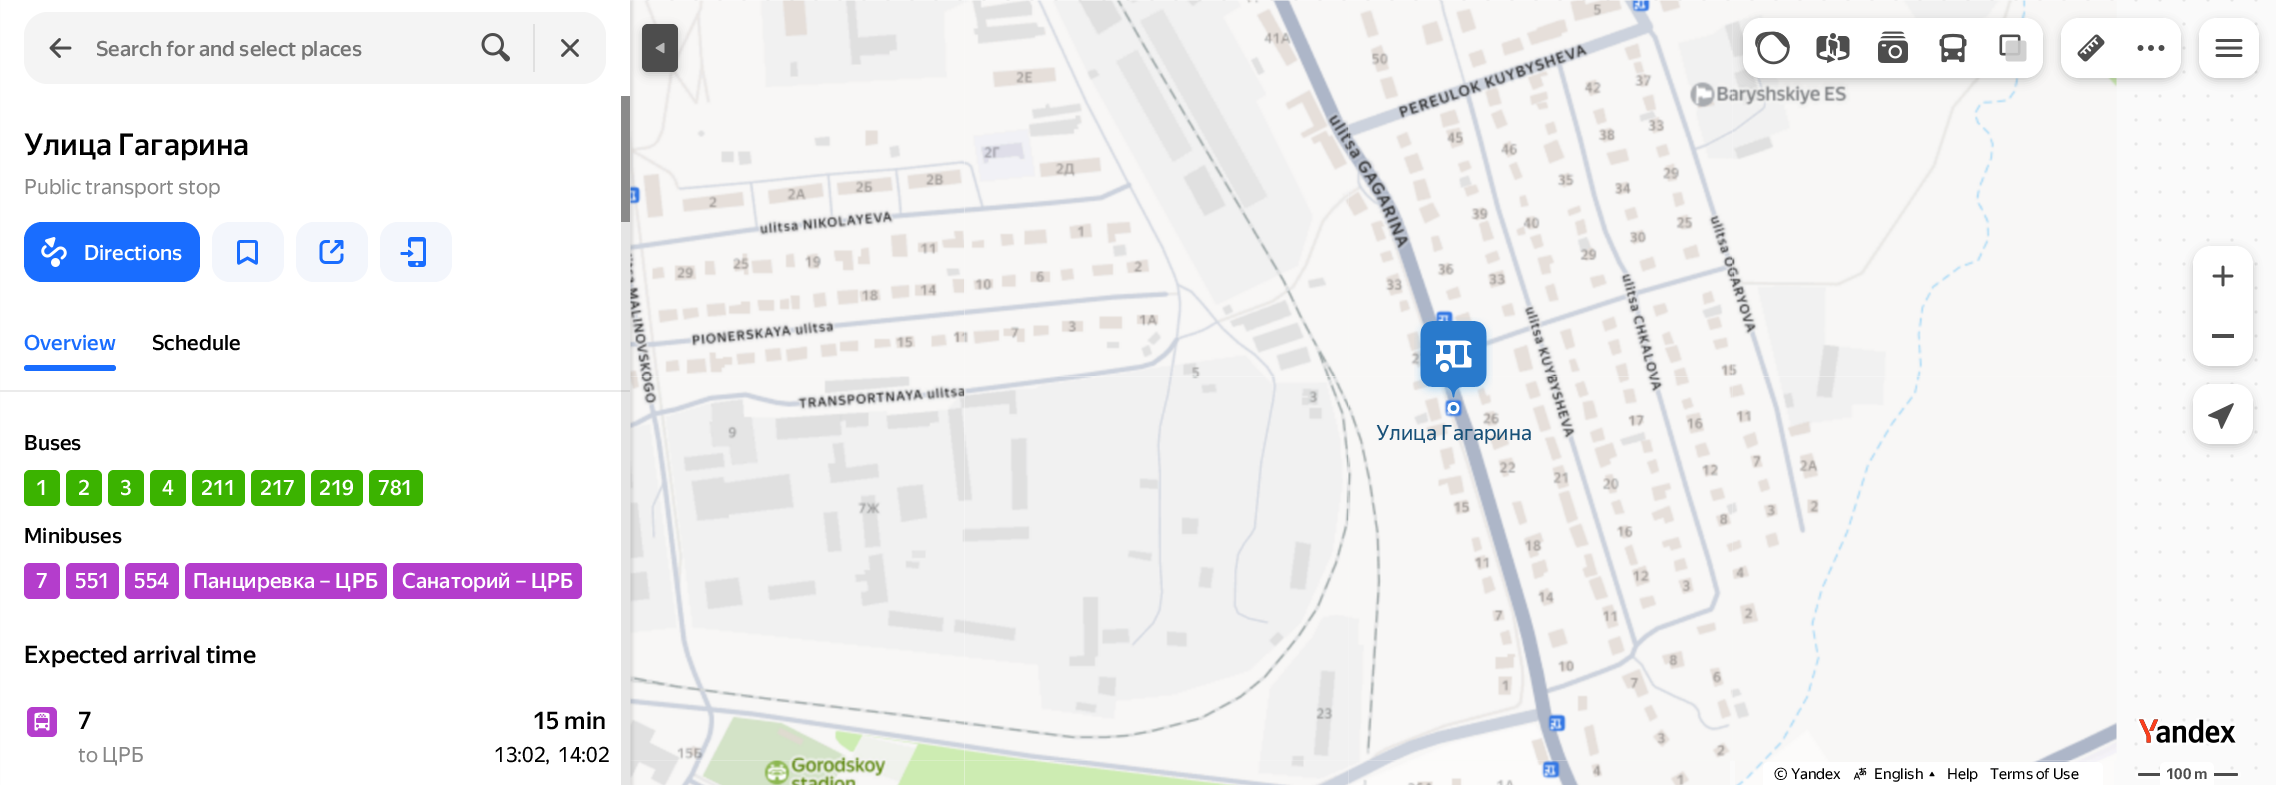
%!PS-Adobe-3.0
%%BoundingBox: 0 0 2276 785
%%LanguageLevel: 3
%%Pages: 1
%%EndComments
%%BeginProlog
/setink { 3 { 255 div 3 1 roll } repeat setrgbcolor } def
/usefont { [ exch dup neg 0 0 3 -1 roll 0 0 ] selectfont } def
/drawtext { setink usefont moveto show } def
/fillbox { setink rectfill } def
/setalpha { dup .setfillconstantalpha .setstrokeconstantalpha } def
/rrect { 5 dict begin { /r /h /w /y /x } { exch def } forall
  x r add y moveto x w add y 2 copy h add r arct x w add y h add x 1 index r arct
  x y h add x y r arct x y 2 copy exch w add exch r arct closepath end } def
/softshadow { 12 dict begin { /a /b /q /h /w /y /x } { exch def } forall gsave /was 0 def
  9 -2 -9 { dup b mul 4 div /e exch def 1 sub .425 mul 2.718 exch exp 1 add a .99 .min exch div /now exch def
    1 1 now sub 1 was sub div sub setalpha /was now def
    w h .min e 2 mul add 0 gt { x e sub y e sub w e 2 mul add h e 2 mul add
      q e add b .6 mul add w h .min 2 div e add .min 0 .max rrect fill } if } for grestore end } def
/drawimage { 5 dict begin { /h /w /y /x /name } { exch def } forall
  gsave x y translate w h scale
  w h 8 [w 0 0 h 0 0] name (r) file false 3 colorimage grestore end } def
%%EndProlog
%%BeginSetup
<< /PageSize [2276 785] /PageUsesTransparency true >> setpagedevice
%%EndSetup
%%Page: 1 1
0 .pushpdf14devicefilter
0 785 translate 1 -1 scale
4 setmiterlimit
0 0 2276 785 255 255 255 fillbox
(assets/img1.rgb) 630 0 1646 785 drawimage
(assets/img24.rgb) 630 0 335 377 drawimage
(assets/img25.rgb) 964 0 385 377 drawimage
(assets/img28.rgb) 630 376 335 385 drawimage
(assets/img26.rgb) 1348 0 385 377 drawimage
(assets/img29.rgb) 964 376 385 385 drawimage
(assets/img27.rgb) 1732 0 385 377 drawimage
(assets/img30.rgb) 1348 376 385 385 drawimage
(assets/img33.rgb) 964 760 385 25 drawimage
(assets/img32.rgb) 630 760 335 25 drawimage
0 0 0 setink
3 0 630 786 0 1.5 0.1 softshadow
642 27 36 48 6 4.5 0.2 softshadow
1 0 629 785 255 255 255 fillbox
244 244 244 setink
24 12 582 72 24 rrect fill
(assets/img2.rgb) 49 38 23 20 drawimage
(Search for and select places) 96 56 /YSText-Medium 21 117 117 117 drawtext
(assets/img3.rgb) 481 33 29 29 drawimage
533 24 2 48 224 224 224 fillbox
(assets/img4.rgb) 561 39 18 18 drawimage
0 0 0 setink
1743 21 300 60 18 4.5 0.2 softshadow
255 255 255 setink
1761 18 moveto 1803 18 lineto 1803 78 lineto 1761 78 lineto 1751 78 1743 70 1743 60 curveto 1743 36 lineto 1743 26 1751 18 1761 18 curveto closepath fill
(assets/img5.rgb) 1755 31 35 34 drawimage
1803 18 180 60 255 255 255 fillbox
(assets/img6.rgb) 1816 33 34 30 drawimage
1983 18 moveto 2025 18 lineto 2035 18 2043 26 2043 36 curveto 2043 60 lineto 2043 70 2035 78 2025 78 curveto 1983 78 lineto closepath fill
(assets/img7.rgb) 1999 34 28 28 drawimage
(assets/img8.rgb) 1878 31 30 32 drawimage
(assets/img9.rgb) 1939 33 28 30 drawimage
0 0 0 setink
2061 21 120 60 18 4.5 0.2 softshadow
255 255 255 setink
2079 18 moveto 2121 18 lineto 2121 78 lineto 2079 78 lineto 2069 78 2061 70 2061 60 curveto 2061 36 lineto 2061 26 2069 18 2079 18 curveto closepath fill
(assets/img10.rgb) 2077 34 28 28 drawimage
2121 18 moveto 2163 18 lineto 2173 18 2181 26 2181 36 curveto 2181 60 lineto 2181 70 2173 78 2163 78 curveto 2121 78 lineto closepath fill
(assets/img11.rgb) 2137 45 28 6 drawimage
0 0 0 setink
2199 21 60 60 18 4.5 0.2 softshadow
255 255 255 setink
2199 18 60 60 18 rrect fill
(assets/img12.rgb) 2215 39 28 18 drawimage
0 0 0 setink
2193 249 60 120 18 4.5 0.2 softshadow
255 255 255 setink
2211 246 moveto 2235 246 lineto 2245 246 2253 254 2253 264 curveto 2253 306 lineto 2193 306 lineto 2193 264 lineto 2193 254 2201 246 2211 246 curveto closepath fill
(assets/img13.rgb) 2212 265 22 22 drawimage
2193 306 moveto 2253 306 lineto 2253 348 lineto 2253 358 2245 366 2235 366 curveto 2211 366 lineto 2201 366 2193 358 2193 348 curveto closepath fill
2212 334 22 4 77 77 77 fillbox
0 0 0 setink
2193 387 60 60 18 4.5 0.2 softshadow
255 255 255 setink
2193 384 60 60 18 rrect fill
(assets/img14.rgb) 2208 403 26 26 drawimage
77 77 77 setink
642 24 36 48 6 rrect fill
(assets/img15.rgb) 655 42 10 12 drawimage
(Улица Гагарина) 24 155 /YSText-Medium 30 0 0 0 drawtext
(Public transport stop) 24 194 /YSText-Regular 21 135 135 135 drawtext
25 109 255 setink
24 222 176 60 18 rrect fill
(assets/img16.rgb) 41 237 26 30 drawimage
(Directions) 84 260 /YSText-Medium 21 255 255 255 drawtext
243 246 252 setink
212 222 72 60 18 rrect fill
(assets/img17.rgb) 237 240 21 25 drawimage
296 222 72 60 18 rrect fill
(assets/img18.rgb) 319 240 25 24 drawimage
380 222 72 60 18 rrect fill
(assets/img19.rgb) 400 237 26 30 drawimage
(Overview) 24 350 /YSText-Medium 21 25 109 255 drawtext
(Schedule) 152 350 /YSText-Medium 21 0 0 0 drawtext
25 109 255 setink
24 365 92 6 3 rrect fill
0 390 630 2 235 235 235 fillbox
(Buses) 24 450 /YSText-Medium 21 0 0 0 drawtext
59 179 0 setink
24 470 36 36 6 rrect fill
(1) 36 495 /YSText-Medium 21 255 255 255 drawtext
59 179 0 setink
66 470 36 36 6 rrect fill
(2) 78 495 /YSText-Medium 21 255 255 255 drawtext
59 179 0 setink
108 470 36 36 6 rrect fill
(3) 120 495 /YSText-Medium 21 255 255 255 drawtext
59 179 0 setink
150 470 36 36 6 rrect fill
(4) 162 495 /YSText-Medium 21 255 255 255 drawtext
59 179 0 setink
192 470 53 36 6 rrect fill
(211) 201 495 /YSText-Medium 21 255 255 255 drawtext
59 179 0 setink
251 470 54 36 6 rrect fill
(217) 260 495 /YSText-Medium 21 255 255 255 drawtext
59 179 0 setink
311 470 52 36 6 rrect fill
(219) 319 495 /YSText-Medium 21 255 255 255 drawtext
59 179 0 setink
369 470 54 36 6 rrect fill
(781) 378 495 /YSText-Medium 21 255 255 255 drawtext
(Minibuses) 24 543 /YSText-Medium 21 0 0 0 drawtext
180 61 204 setink
24 563 36 36 6 rrect fill
(7) 36 588 /YSText-Medium 21 255 255 255 drawtext
180 61 204 setink
66 563 53 36 6 rrect fill
(551) 75 588 /YSText-Medium 21 255 255 255 drawtext
180 61 204 setink
125 563 54 36 6 rrect fill
(554) 134 588 /YSText-Medium 21 255 255 255 drawtext
180 61 204 setink
185 563 202 36 6 rrect fill
(Панциревка – ЦРБ) 193 588 /YSText-Medium 21 255 255 255 drawtext
180 61 204 setink
393 563 189 36 6 rrect fill
(Санаторий – ЦРБ) 402 588 /YSText-Medium 21 255 255 255 drawtext
(Expected arrival time) 24 663 /YSText-Medium 24 0 0 0 drawtext
180 61 204 setink
27 707 30 30 6 rrect fill
(assets/img20.rgb) 34 712 16 19 drawimage
(7) 78 729 /YSText-Medium 24 0 0 0 drawtext
(to ЦРБ) 78 762 /YSText-Regular 21 135 135 135 drawtext
(15 min) 533 729 /YSText-Medium 24 0 0 0 drawtext
/YSText-Regular 21 usefont
494 762 moveto -1 0 32 (13:02,) widthshow
558 762 moveto -1 0 32 (14:02) widthshow
621 96 9 126 138 138 138 fillbox
0.1 setalpha
621 222 9 563 0 0 0 fillbox
1 setalpha
(assets/img21.rgb) 2136 718 100 28 drawimage
(assets/img31.rgb) 1732 376 385 385 drawimage
(assets/img35.rgb) 1735 760 379 25 drawimage
255 255 255 setink
1769 762 moveto 2097 762 lineto 2100.5 762 2103 764.5 2103 768 curveto 2103 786 lineto 1763 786 lineto 1763 768 lineto 1763 764.5 1765.5 762 1769 762 curveto closepath fill
(© Yandex) 1774 779 /YSText-Regular 15 0 0 0 drawtext
(assets/img22.rgb) 1853 767 14 13 drawimage
(English) 1874 779 /YSText-Regular 15 0 0 0 drawtext
(assets/img23.rgb) 1929 771 6 6 drawimage
(Help) 1947 779 /YSText-Regular 15 0 0 0 drawtext
(Terms of Use) 1990 779 /YSText-Regular 15 0 0 0 drawtext
253 253 253 setink
2135 770 106 9 4.5 rrect fill
77 77 77 setink
2138 773 100 3 1.5 rrect fill
255 255 255 setink
2166 762 moveto 2208 762 lineto 2211.5 762 2214 764.5 2214 768 curveto 2214 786 lineto 2160 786 lineto 2160 768 lineto 2160 764.5 2162.5 762 2166 762 curveto closepath fill
(100 m) 2166 779 /YSText-Bold 15 77 77 77 drawtext
(assets/img34.rgb) 1348 760 382 25 drawimage
(assets/img36.rgb) 1414 317 79 97 drawimage
(assets/img37.rgb) 1436 340 36 32 drawimage
(Улица Гагарина) 1376 440 /YSText-Regular 21 23 80 120 drawtext
.poppdf14devicefilter showpage
%%EOF
